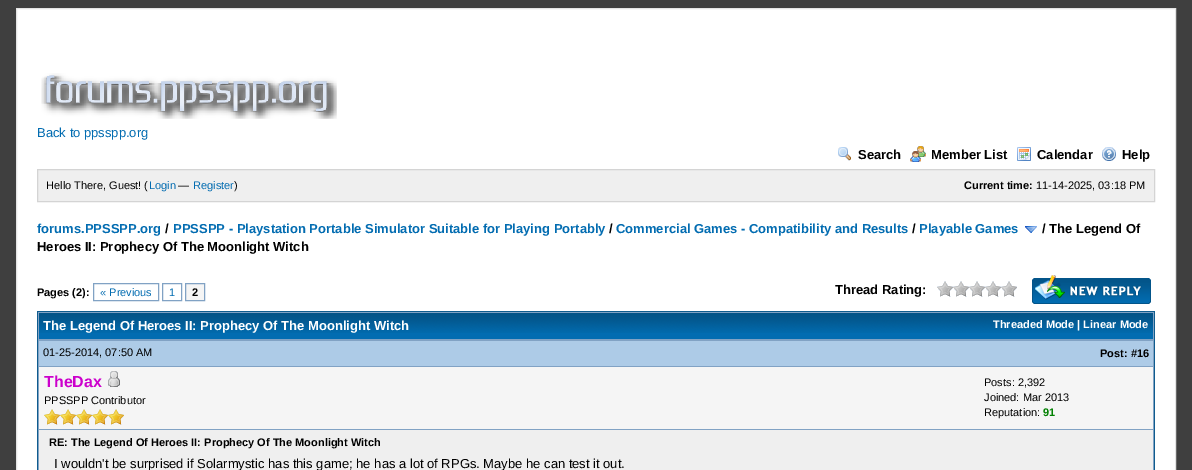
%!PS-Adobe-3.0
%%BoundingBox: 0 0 1192 470
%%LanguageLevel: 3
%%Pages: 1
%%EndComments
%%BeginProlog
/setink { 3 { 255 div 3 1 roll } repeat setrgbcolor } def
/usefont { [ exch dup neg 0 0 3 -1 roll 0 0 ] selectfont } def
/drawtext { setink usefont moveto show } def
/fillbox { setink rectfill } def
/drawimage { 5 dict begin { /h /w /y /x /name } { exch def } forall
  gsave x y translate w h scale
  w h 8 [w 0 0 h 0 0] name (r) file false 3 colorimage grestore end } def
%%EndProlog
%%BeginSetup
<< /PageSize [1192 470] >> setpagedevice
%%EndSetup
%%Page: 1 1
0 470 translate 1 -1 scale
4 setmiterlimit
0 0 1192 470 63 63 63 fillbox
255 255 255 setink
16.5 8.5 moveto 1175.5 8.5 lineto 1175.5 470.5 lineto 16.5 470.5 lineto closepath gsave fill grestore
228 228 228 setink
stroke
(assets/img1.rgb) 41 73 296 46 drawimage
(Back to ppsspp.org) 37 137 /LiberationSans-Regular 13 2 108 177 drawtext
(assets/img2.rgb) 838 147 13 14 drawimage
(Search) 858 159 /LiberationSans-Bold 13 0 0 0 drawtext
(assets/img3.rgb) 910 146 16 16 drawimage
(Member List) 931 159 /LiberationSans-Bold 13 0 0 0 drawtext
(assets/img4.rgb) 1017 147 14 14 drawimage
(Calendar) 1037 159 /LiberationSans-Bold 13 0 0 0 drawtext
(assets/img5.rgb) 1102 147 14 14 drawimage
(Help) 1122 159 /LiberationSans-Bold 13 0 0 0 drawtext
239 239 239 setink
37.5 169.5 moveto 1154.5 169.5 lineto 1154.5 201.5 lineto 37.5 201.5 lineto closepath gsave fill grestore
212 212 212 setink
stroke
(Hello There, Guest! \() 46 189 /LiberationSans-Regular 11 0 0 0 drawtext
(Login) 149 189 /LiberationSans-Regular 11 2 108 177 drawtext
(—) 178 189 /LiberationSans-Regular 11 0 0 0 drawtext
(Register) 193 189 /LiberationSans-Regular 11 2 108 177 drawtext
(\)) 234 189 /LiberationSans-Regular 11 0 0 0 drawtext
(Current time:) 964 189 /LiberationSans-Bold 11 0 0 0 drawtext
(11-14-2025, 03:18 PM) 1036 189 /LiberationSans-Regular 11 0 0 0 drawtext
(forums.PPSSPP.org) 37 233 /LiberationSans-Bold 13 2 108 177 drawtext
(/) 165 233 /LiberationSans-Bold 13 0 0 0 drawtext
(PPSSPP - Playstation Portable Simulator Suitable for Playing Portably) 173 233 /LiberationSans-Bold 13 2 108 177 drawtext
(/) 609 233 /LiberationSans-Bold 13 0 0 0 drawtext
(Commercial Games - Compatibility and Results) 616 233 /LiberationSans-Bold 13 2 108 177 drawtext
(/) 912 233 /LiberationSans-Bold 13 0 0 0 drawtext
(Playable Games) 919 233 /LiberationSans-Bold 13 2 108 177 drawtext
(assets/img6.rgb) 1025 226 12 7 drawimage
(/ The Legend Of) 1042 233 /LiberationSans-Bold 13 0 0 0 drawtext
(Heroes II: Prophecy Of The Moonlight Witch) 37 251 /LiberationSans-Bold 13 0 0 0 drawtext
(Pages \(2\):) 37 296 /LiberationSans-Bold 11 0 0 0 drawtext
129 162 196 setink
93.5 283.5 65 17 rectstroke
(« Previous) 100 296 /LiberationSans-Regular 11 2 108 177 drawtext
129 162 196 setink
162.5 283.5 19 17 rectstroke
(1) 169 296 /LiberationSans-Regular 11 2 108 177 drawtext
245 245 245 setink
185.5 283.5 moveto 204.5 283.5 lineto 204.5 300.5 lineto 185.5 300.5 lineto closepath gsave fill grestore
129 162 196 setink
stroke
(2) 192 296 /LiberationSans-Bold 11 0 0 0 drawtext
(Thread Rating:) 835 294 /LiberationSans-Bold 13 0 0 0 drawtext
(assets/img7.rgb) 937 281 80 16 drawimage
(assets/img8.rgb) 1032 275 119 29 drawimage
38 312 1116 158 129 162 196 fillbox
37 311 1118 1 15 92 142 fillbox
1154 311 1 159 15 92 142 fillbox
37 311 1 159 15 92 142 fillbox
39 333 1114 6 2 108 177 fillbox
(assets/img9.rgb) 39 313 1114 20 drawimage
(The Legend Of Heroes II: Prophecy Of The Moonlight Witch) 43 330 /LiberationSans-Bold 13 255 255 255 drawtext
(Threaded Mode | Linear Mode) 993 328 /LiberationSans-Bold 11 255 255 255 drawtext
39 341 1114 25 173 203 231 fillbox
(01-25-2014, 07:50 AM) 43 356 /LiberationSans-Regular 11 0 0 0 drawtext
(Post: #16) 1100 357 /LiberationSans-Bold 11 0 0 0 drawtext
39 367 1114 62 245 245 245 fillbox
(TheDax) 44 387 /LiberationSans-Bold 16 204 0 204 drawtext
(assets/img10.rgb) 108 371 12 16 drawimage
(PPSSPP Contributor) 44 404 /LiberationSans-Regular 11 0 0 0 drawtext
(assets/img11.rgb) 44 409 16 16 drawimage
(assets/img11.rgb) 60 409 16 16 drawimage
(assets/img11.rgb) 76 409 16 16 drawimage
(assets/img11.rgb) 92 409 16 16 drawimage
(assets/img11.rgb) 108 409 16 16 drawimage
(Posts: 2,392) 984 386 /LiberationSans-Regular 11 0 0 0 drawtext
(Joined: Mar 2013) 984 401 /LiberationSans-Regular 11 0 0 0 drawtext
(Reputation:) 984 416 /LiberationSans-Regular 11 0 0 0 drawtext
(91) 1043 416 /LiberationSans-Bold 11 0 128 0 drawtext
39 430 1114 40 239 239 239 fillbox
(RE: The Legend Of Heroes II: Prophecy Of The Moonlight Witch) 49 446 /LiberationSans-Bold 11 0 0 0 drawtext
(I wouldn't be surprised if Solarmystic has this game; he has a lot of RPGs. Maybe he can test it out.) 54 468 /LiberationSans-Regular 13 0 0 0 drawtext
showpage
%%EOF
